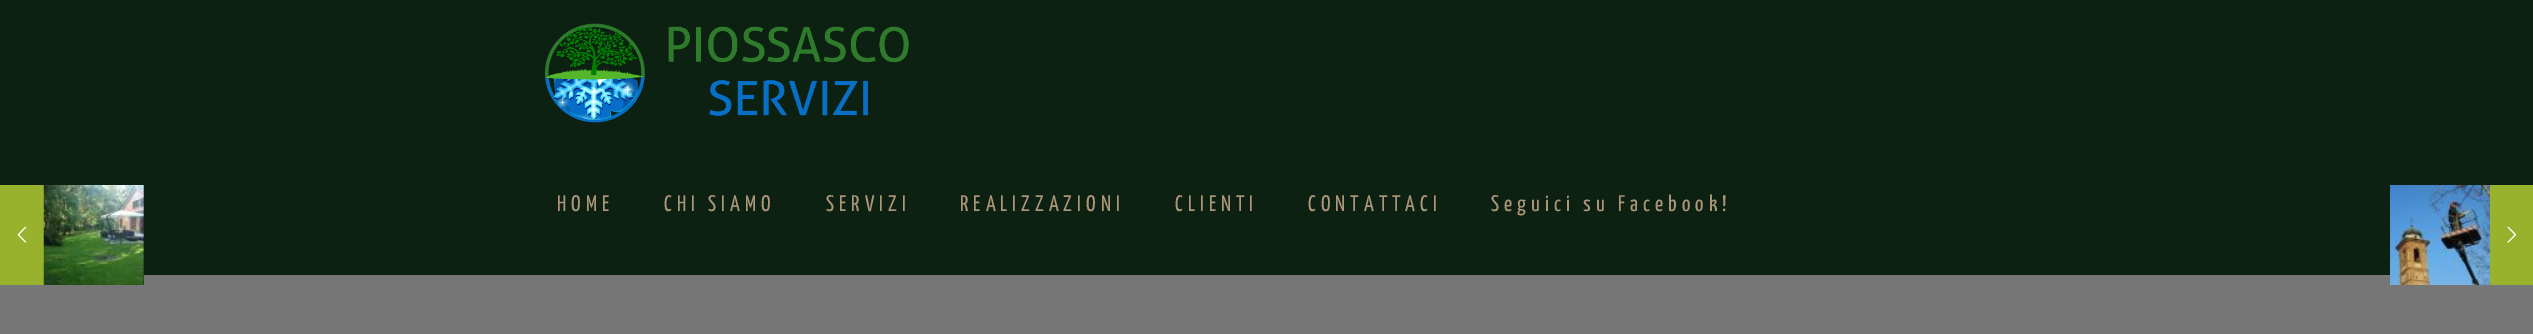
%!PS-Adobe-3.0
%%BoundingBox: 0 0 2533 334
%%LanguageLevel: 3
%%Pages: 1
%%EndComments
%%BeginProlog
/setink { 3 { 255 div 3 1 roll } repeat setrgbcolor } def
/usefont { [ exch dup neg 0 0 3 -1 roll 0 0 ] selectfont } def
/fillbox { setink rectfill } def
/drawimage { 5 dict begin { /h /w /y /x /name } { exch def } forall
  gsave x y translate w h scale
  w h 8 [w 0 0 h 0 0] name (r) file false 3 colorimage grestore end } def
%%EndProlog
%%BeginSetup
<< /PageSize [2533 334] >> setpagedevice
%%EndSetup
%%Page: 1 1
0 334 translate 1 -1 scale
4 setmiterlimit
0 0 2533 334 118 118 118 fillbox
0 0 2533 275 13 33 18 fillbox
0 185 44 100 152 178 46 fillbox
(assets/img1.rgb) 17 226 10 17 drawimage
(assets/img2.rgb) 43 185 101 100 drawimage
(assets/img3.rgb) 545 23 364 100 drawimage
/YanoneKaffeesatz-Regular 22.5 usefont
172 150 121 setink
557 211 moveto 5 0 (HOME) ashow
664 211 moveto 5 0 (CHI SIAMO) ashow
826 211 moveto 5 0 (SERVIZI) ashow
960 211 moveto 5 0 (REALIZZAZIONI) ashow
1175 211 moveto 5 0 (CLIENTI) ashow
1308 211 moveto 5 0 (CONTATTACI) ashow
1491 211 moveto 5 0 (Seguici su Facebook!) ashow
(assets/img4.rgb) 2390 185 100 100 drawimage
2490 185 43 100 152 178 46 fillbox
(assets/img5.rgb) 2507 226 10 17 drawimage
showpage
%%EOF
